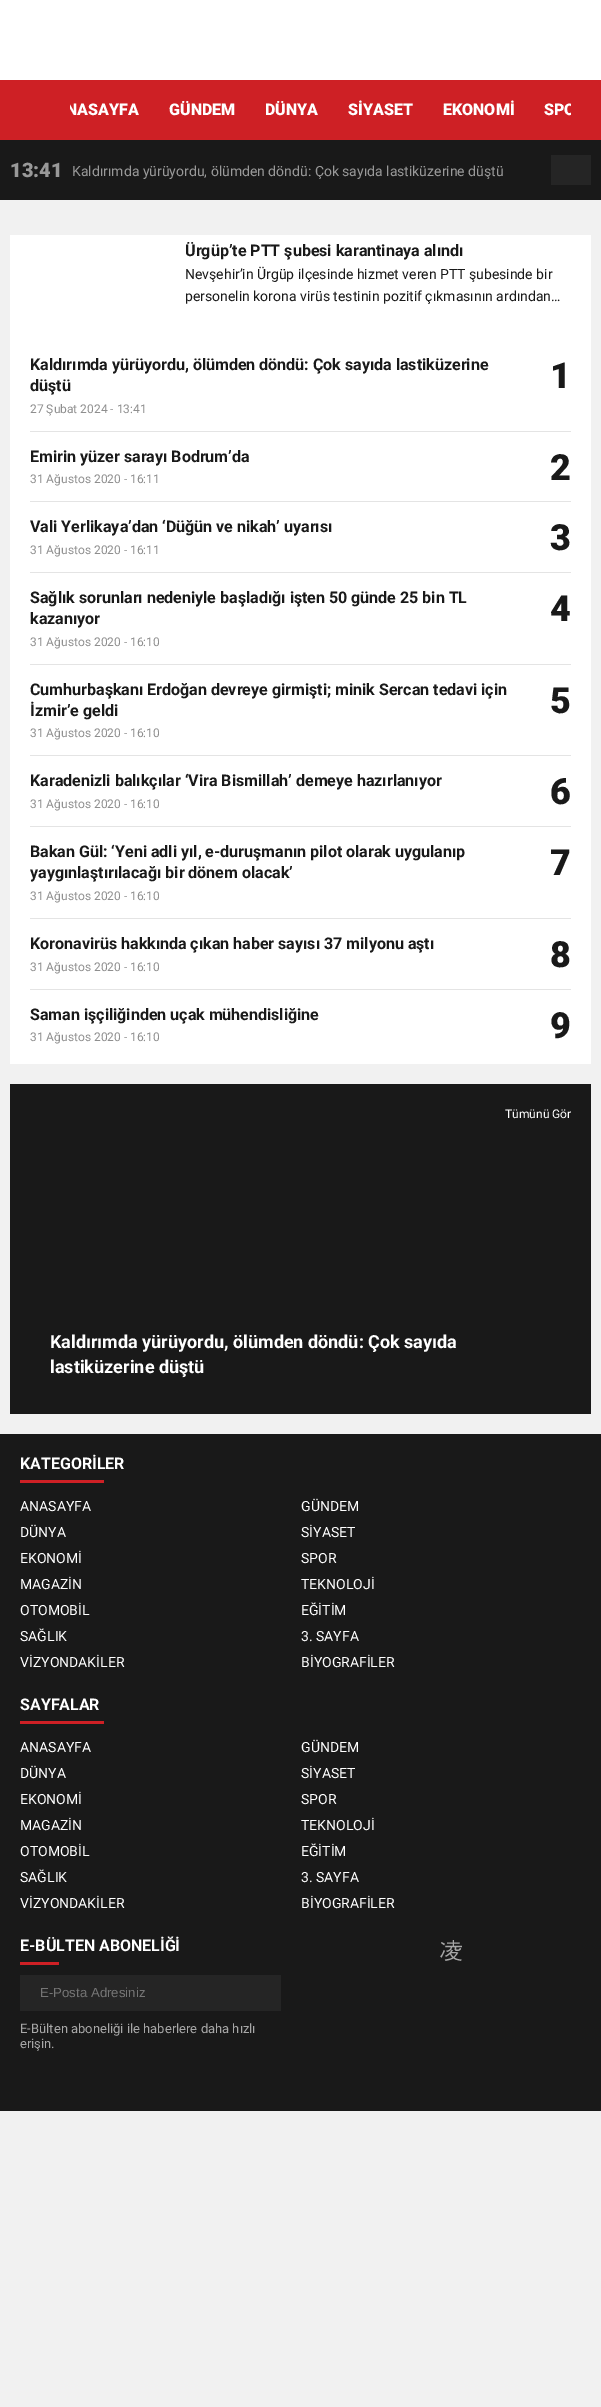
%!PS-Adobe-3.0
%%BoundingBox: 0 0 601 2407
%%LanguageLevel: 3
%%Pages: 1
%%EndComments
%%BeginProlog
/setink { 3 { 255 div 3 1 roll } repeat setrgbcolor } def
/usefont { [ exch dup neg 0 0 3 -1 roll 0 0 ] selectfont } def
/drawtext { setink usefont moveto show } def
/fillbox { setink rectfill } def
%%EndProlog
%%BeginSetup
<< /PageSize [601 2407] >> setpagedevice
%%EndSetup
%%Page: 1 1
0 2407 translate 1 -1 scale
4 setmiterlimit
0 0 601 2407 241 241 241 fillbox
0 0 601 80 255 255 255 fillbox
70 80 501 60 206 32 37 fillbox
(NASAYFA) 66 115 /Roboto-Black 16 255 255 255 drawtext
0 80 70 60 206 32 37 fillbox
(GÜNDEM) 169 115 /Roboto-Black 16 255 255 255 drawtext
(DÜNYA) 265 115 /Roboto-Black 16 255 255 255 drawtext
(SİYASET) 348 115 /Roboto-Black 16 255 255 255 drawtext
(EKONOMİ) 443 115 /Roboto-Black 16 255 255 255 drawtext
(SPO) 544 115 /Roboto-Black 16 255 255 255 drawtext
571 80 30 60 206 32 37 fillbox
0 140 601 60 25 25 25 fillbox
(13:41) 10 177 /Roboto-Black 20 153 153 153 drawtext
(Kaldırımda yürüyordu, ölümden döndü: Çok sayıda lastiküzerine düştü) 72 176 /Roboto-Regular 14 153 153 153 drawtext
551 155 40 30 37 37 37 fillbox
10 235 581 829 255 255 255 fillbox
(Ürgüp’te PTT şubesi karantinaya alındı) 185 256 /Roboto-Bold 16 25 25 25 drawtext
(Nevşehir’in Ürgüp ilçesinde hizmet veren PTT şubesinde bir) 185 279 /Roboto-Regular 14 25 25 25 drawtext
(personelin korona virüs testinin pozitif çıkmasının ardından…) 185 301 /Roboto-Regular 14 25 25 25 drawtext
30 431 541 1 228 228 228 fillbox
(Kaldırımda yürüyordu, ölümden döndü: Çok sayıda lastiküzerine) 30 370 /Roboto-Bold 16 25 25 25 drawtext
(düştü) 30 391 /Roboto-Bold 16 25 25 25 drawtext
(1) 550 388 /Roboto-Black 36 25 25 25 drawtext
(27 Şubat 2024 - 13:41) 30 413 /Roboto-Regular 12 142 142 142 drawtext
30 501 541 1 228 228 228 fillbox
(Emirin yüzer sarayı Bodrum’da) 30 462 /Roboto-Bold 16 25 25 25 drawtext
(2) 550 480 /Roboto-Black 36 25 25 25 drawtext
(31 Ağustos 2020 - 16:11) 30 483 /Roboto-Regular 12 142 142 142 drawtext
30 572 541 1 228 228 228 fillbox
(Vali Yerlikaya’dan ‘Düğün ve nikah’ uyarısı) 30 532 /Roboto-Bold 16 25 25 25 drawtext
(3) 550 550 /Roboto-Black 36 25 25 25 drawtext
(31 Ağustos 2020 - 16:11) 30 554 /Roboto-Regular 12 142 142 142 drawtext
30 664 541 1 228 228 228 fillbox
(Sağlık sorunları nedeniyle başladığı işten 50 günde 25 bin TL) 30 603 /Roboto-Bold 16 25 25 25 drawtext
(kazanıyor) 30 624 /Roboto-Bold 16 25 25 25 drawtext
(4) 550 621 /Roboto-Black 36 25 25 25 drawtext
(31 Ağustos 2020 - 16:10) 30 646 /Roboto-Regular 12 142 142 142 drawtext
30 755 541 1 228 228 228 fillbox
(Cumhurbaşkanı Erdoğan devreye girmişti; minik Sercan tedavi için) 30 695 /Roboto-Bold 16 25 25 25 drawtext
(İzmir’e geldi) 30 716 /Roboto-Bold 16 25 25 25 drawtext
(5) 550 713 /Roboto-Black 36 25 25 25 drawtext
(31 Ağustos 2020 - 16:10) 30 737 /Roboto-Regular 12 142 142 142 drawtext
30 826 541 1 228 228 228 fillbox
(Karadenizli balıkçılar ‘Vira Bismillah’ demeye hazırlanıyor) 30 786 /Roboto-Bold 16 25 25 25 drawtext
(6) 550 804 /Roboto-Black 36 25 25 25 drawtext
(31 Ağustos 2020 - 16:10) 30 808 /Roboto-Regular 12 142 142 142 drawtext
30 918 541 1 228 228 228 fillbox
(Bakan Gül: ‘Yeni adli yıl, e-duruşmanın pilot olarak uygulanıp) 30 857 /Roboto-Bold 16 25 25 25 drawtext
(yaygınlaştırılacağı bir dönem olacak’) 30 878 /Roboto-Bold 16 25 25 25 drawtext
(7) 550 875 /Roboto-Black 36 25 25 25 drawtext
(31 Ağustos 2020 - 16:10) 30 900 /Roboto-Regular 12 142 142 142 drawtext
30 989 541 1 228 228 228 fillbox
(Koronavirüs hakkında çıkan haber sayısı 37 milyonu aştı) 30 949 /Roboto-Bold 16 25 25 25 drawtext
(8) 550 967 /Roboto-Black 36 25 25 25 drawtext
(31 Ağustos 2020 - 16:10) 30 971 /Roboto-Regular 12 142 142 142 drawtext
(Saman işçiliğinden uçak mühendisliğine) 30 1020 /Roboto-Bold 16 25 25 25 drawtext
(9) 550 1038 /Roboto-Black 36 25 25 25 drawtext
(31 Ağustos 2020 - 16:10) 30 1041 /Roboto-Regular 12 142 142 142 drawtext
10 1084 581 330 25 25 25 fillbox
(Tümünü Gör) 505 1118 /Roboto-Regular 12 255 255 255 drawtext
(Kaldırımda yürüyordu, ölümden döndü: Çok sayıda) 50 1348 /Roboto-Bold 18 255 255 255 drawtext
(lastiküzerine düştü) 50 1373 /Roboto-Bold 18 255 255 255 drawtext
0 1434 601 677 25 25 25 fillbox
(KATEGORİLER) 20 1469 /Roboto-Bold 16 255 255 255 drawtext
20 1480 84 3 206 32 37 fillbox
(ANASAYFA) 20 1511 /Roboto-Regular 14 255 255 255 drawtext
(GÜNDEM) 301 1511 /Roboto-Regular 14 255 255 255 drawtext
(DÜNYA) 20 1537 /Roboto-Regular 14 255 255 255 drawtext
(SİYASET) 301 1537 /Roboto-Regular 14 255 255 255 drawtext
(EKONOMİ) 20 1563 /Roboto-Regular 14 255 255 255 drawtext
(SPOR) 301 1563 /Roboto-Regular 14 255 255 255 drawtext
(MAGAZİN) 20 1589 /Roboto-Regular 14 255 255 255 drawtext
(TEKNOLOJİ) 301 1589 /Roboto-Regular 14 255 255 255 drawtext
(OTOMOBİL) 20 1615 /Roboto-Regular 14 255 255 255 drawtext
(EĞİTİM) 301 1615 /Roboto-Regular 14 255 255 255 drawtext
(SAĞLIK) 20 1641 /Roboto-Regular 14 255 255 255 drawtext
(3. SAYFA) 301 1641 /Roboto-Regular 14 255 255 255 drawtext
(VİZYONDAKİLER) 20 1667 /Roboto-Regular 14 255 255 255 drawtext
(BİYOGRAFİLER) 301 1667 /Roboto-Regular 14 255 255 255 drawtext
(SAYFALAR) 20 1710 /Roboto-Bold 16 255 255 255 drawtext
20 1721 84 3 206 32 37 fillbox
(ANASAYFA) 20 1752 /Roboto-Regular 14 255 255 255 drawtext
(GÜNDEM) 301 1752 /Roboto-Regular 14 255 255 255 drawtext
(DÜNYA) 20 1778 /Roboto-Regular 14 255 255 255 drawtext
(SİYASET) 301 1778 /Roboto-Regular 14 255 255 255 drawtext
(EKONOMİ) 20 1804 /Roboto-Regular 14 255 255 255 drawtext
(SPOR) 301 1804 /Roboto-Regular 14 255 255 255 drawtext
(MAGAZİN) 20 1830 /Roboto-Regular 14 255 255 255 drawtext
(TEKNOLOJİ) 301 1830 /Roboto-Regular 14 255 255 255 drawtext
(OTOMOBİL) 20 1856 /Roboto-Regular 14 255 255 255 drawtext
(EĞİTİM) 301 1856 /Roboto-Regular 14 255 255 255 drawtext
(SAĞLIK) 20 1882 /Roboto-Regular 14 255 255 255 drawtext
(3. SAYFA) 301 1882 /Roboto-Regular 14 255 255 255 drawtext
(VİZYONDAKİLER) 20 1908 /Roboto-Regular 14 255 255 255 drawtext
(BİYOGRAFİLER) 301 1908 /Roboto-Regular 14 255 255 255 drawtext
(E-BÜLTEN ABONELİĞİ) 20 1951 /Roboto-Bold 16 255 255 255 drawtext
20 1962 39 3 206 32 37 fillbox
20 1975 261 36 37 37 37 fillbox
(E-Posta Adresiniz) 40 1997 /LiberationSans-Regular 13.25 117 117 117 drawtext
(E-Bülten aboneliği ile haberlere daha hızlı) 20 2033 /Roboto-Regular 13 167 167 167 drawtext
(erişin.) 20 2048 /Roboto-Regular 13 167 167 167 drawtext
(凌) 439 1958 /WenQuanYiZenHei-Medium 24 167 167 167 drawtext
showpage
%%EOF
